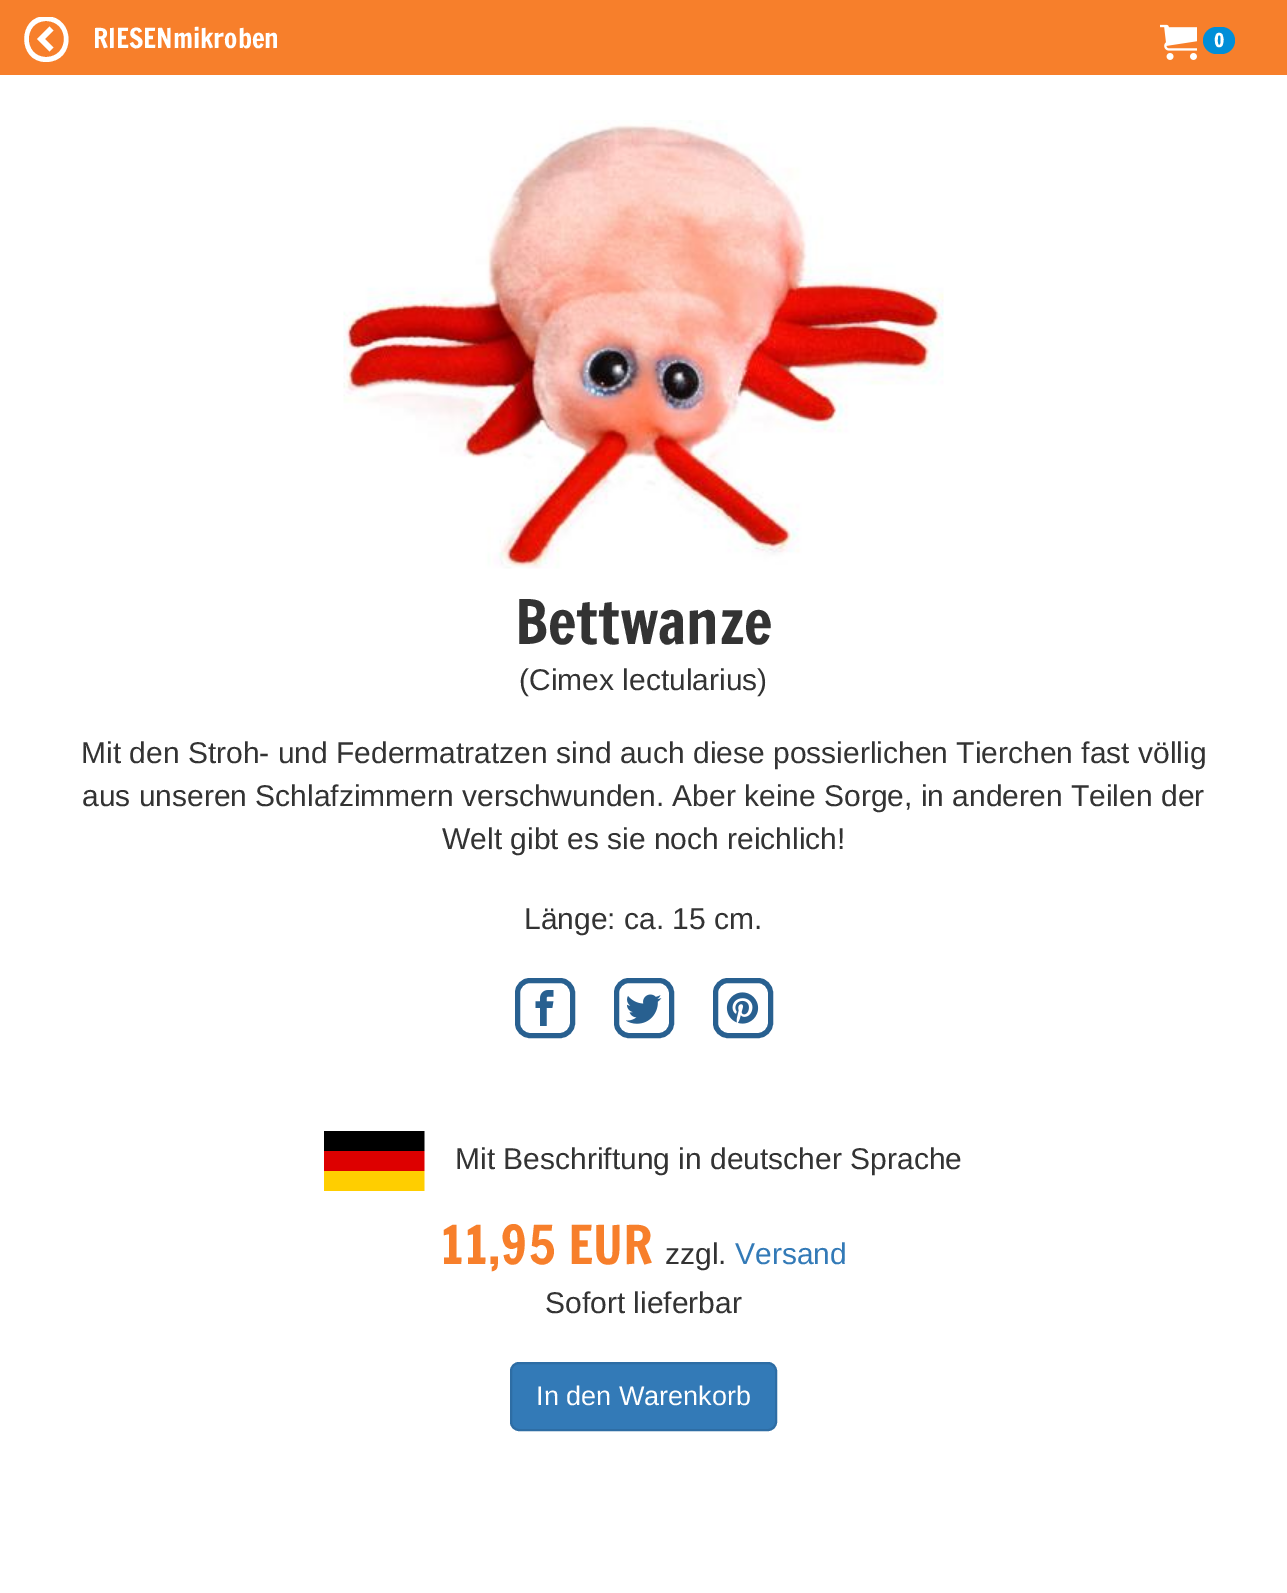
%!PS-Adobe-3.0
%%BoundingBox: 0 0 1287 1593
%%LanguageLevel: 3
%%Pages: 1
%%EndComments
%%BeginProlog
/setink { 3 { 255 div 3 1 roll } repeat setrgbcolor } def
/usefont { [ exch dup neg 0 0 3 -1 roll 0 0 ] selectfont } def
/drawtext { setink usefont moveto show } def
/fillbox { setink rectfill } def
/rrect { 5 dict begin { /r /h /w /y /x } { exch def } forall
  x r add y moveto x w add y 2 copy h add r arct x w add y h add x 1 index r arct
  x y h add x y r arct x y 2 copy exch w add exch r arct closepath end } def
/drawimage { 5 dict begin { /h /w /y /x /name } { exch def } forall
  gsave x y translate w h scale
  w h 8 [w 0 0 h 0 0] name (r) file false 3 colorimage grestore end } def
%%EndProlog
%%BeginSetup
<< /PageSize [1287 1593] >> setpagedevice
%%EndSetup
%%Page: 1 1
0 1593 translate 1 -1 scale
4 setmiterlimit
0 0 1287 1593 255 255 255 fillbox
0 0 1287 75 247 127 43 fillbox
gsave
24 17 45 45 rectclip
255 255 255 setink
46 62 moveto 76 62 76 17 46 16 curveto 17 16 17 62 46 62 curveto closepath 46 21 moveto 70 21 70 57 46 57 curveto 23 57 23 21 46 21 curveto closepath fill
grestore
255 255 255 setink
53.5 30.5 moveto 49.5 26.5 lineto 37 39 lineto 49.5 51.5 lineto 53.5 47.5 lineto 45 39 lineto closepath fill
(RIESENmikroben) 93 48 /FrancoisOne-Regular 27 255 255 255 drawtext
(assets/img1.rgb) 1160 24 37 36 drawimage
1 142 216 setink
1203 27 32 27 13.5 rrect fill
(0) 1214 47 /FrancoisOne-Bold 18 255 255 255 drawtext
(assets/img2.rgb) 343 120 601 449 drawimage
(Bettwanze) 515 644 /FrancoisOne-Regular 60 51 51 51 drawtext
(\(Cimex lectularius\)) 519 690 /LiberationSans-Regular 30 51 51 51 drawtext
(Mit den Stroh- und Federmatratzen sind auch diese possierlichen Tierchen fast völlig) 81 763 /LiberationSans-Regular 30 51 51 51 drawtext
(aus unseren Schlafzimmern verschwunden. Aber keine Sorge, in anderen Teilen der) 82 806 /LiberationSans-Regular 30 51 51 51 drawtext
(Welt gibt es sie noch reichlich!) 442 849 /LiberationSans-Regular 30 51 51 51 drawtext
(Länge: ca. 15 cm.) 524 929 /LiberationSans-Regular 30 51 51 51 drawtext
40 96 144 setink
5 setlinewidth
517.5 980.5 55 55 12.5 rrect stroke
616.5 980.5 55 55 12.5 rrect stroke
715.5 980.5 55 55 12.5 rrect stroke
(assets/img3.rgb) 535 990 19 36 drawimage
(assets/img4.rgb) 626 994 36 30 drawimage
(assets/img5.rgb) 726 992 33 32 drawimage
(assets/img6.rgb) 324 1131 101 60 drawimage
(Mit Beschriftung in deutscher Sprache) 455 1169 /LiberationSans-Regular 30 51 51 51 drawtext
(11,95 EUR) 440 1264 /FrancoisOne-Regular 52.5 247 127 43 drawtext
(zzgl.) 665 1264 /LiberationSans-Regular 30 51 51 51 drawtext
(Versand) 735 1264 /LiberationSans-Regular 30 51 122 183 drawtext
(Sofort lieferbar) 545 1313 /LiberationSans-Regular 30 51 51 51 drawtext
51 122 183 setink
511 1363 265 67 8 rrect gsave fill grestore
46 109 164 setink
2 setlinewidth
stroke
(In den Warenkorb) 536 1405 /LiberationSans-Regular 27 255 255 255 drawtext
showpage
%%EOF
